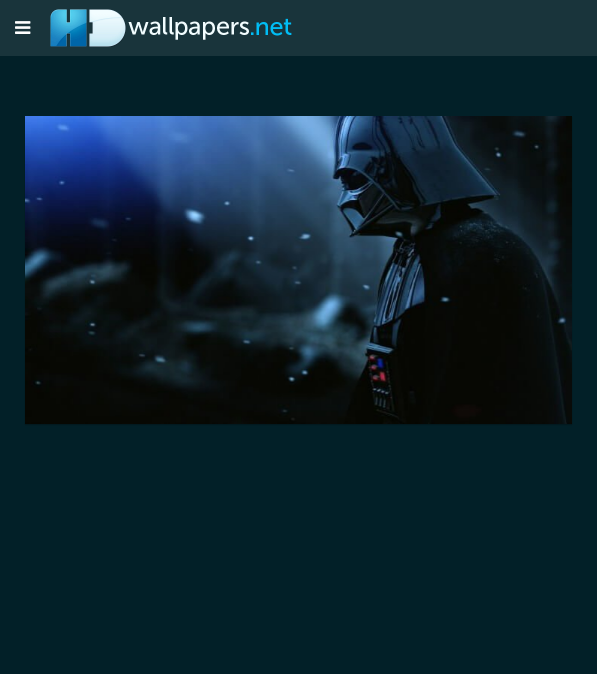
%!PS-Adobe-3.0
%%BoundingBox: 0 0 597 674
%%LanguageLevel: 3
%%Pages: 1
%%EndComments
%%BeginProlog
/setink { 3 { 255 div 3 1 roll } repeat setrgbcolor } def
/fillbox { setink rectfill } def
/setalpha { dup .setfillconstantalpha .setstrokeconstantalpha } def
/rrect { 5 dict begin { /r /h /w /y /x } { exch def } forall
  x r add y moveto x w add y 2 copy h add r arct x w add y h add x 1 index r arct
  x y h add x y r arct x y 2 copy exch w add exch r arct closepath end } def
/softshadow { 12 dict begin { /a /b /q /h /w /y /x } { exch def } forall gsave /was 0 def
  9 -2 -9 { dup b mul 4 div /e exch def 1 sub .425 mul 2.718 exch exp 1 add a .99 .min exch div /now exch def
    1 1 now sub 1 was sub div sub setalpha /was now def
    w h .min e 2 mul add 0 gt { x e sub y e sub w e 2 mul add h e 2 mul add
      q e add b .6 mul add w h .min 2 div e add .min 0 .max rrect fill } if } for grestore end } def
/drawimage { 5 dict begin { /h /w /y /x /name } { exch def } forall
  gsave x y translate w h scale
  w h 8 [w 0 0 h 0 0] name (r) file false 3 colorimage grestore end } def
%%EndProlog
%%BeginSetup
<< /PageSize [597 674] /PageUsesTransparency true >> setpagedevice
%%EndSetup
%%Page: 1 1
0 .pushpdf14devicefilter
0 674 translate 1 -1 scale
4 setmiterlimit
0 0 597 674 25 52 59 fillbox
(assets/img1.rgb) 15 21 16 13 drawimage
(assets/img2.rgb) 50 9 242 38 drawimage
0 56 597 618 2 32 40 fillbox
0 0 0 setink
25 117 547 308 0 0.5 0.25 softshadow
(assets/img3.rgb) 25 116 547 308 drawimage
.poppdf14devicefilter showpage
%%EOF
